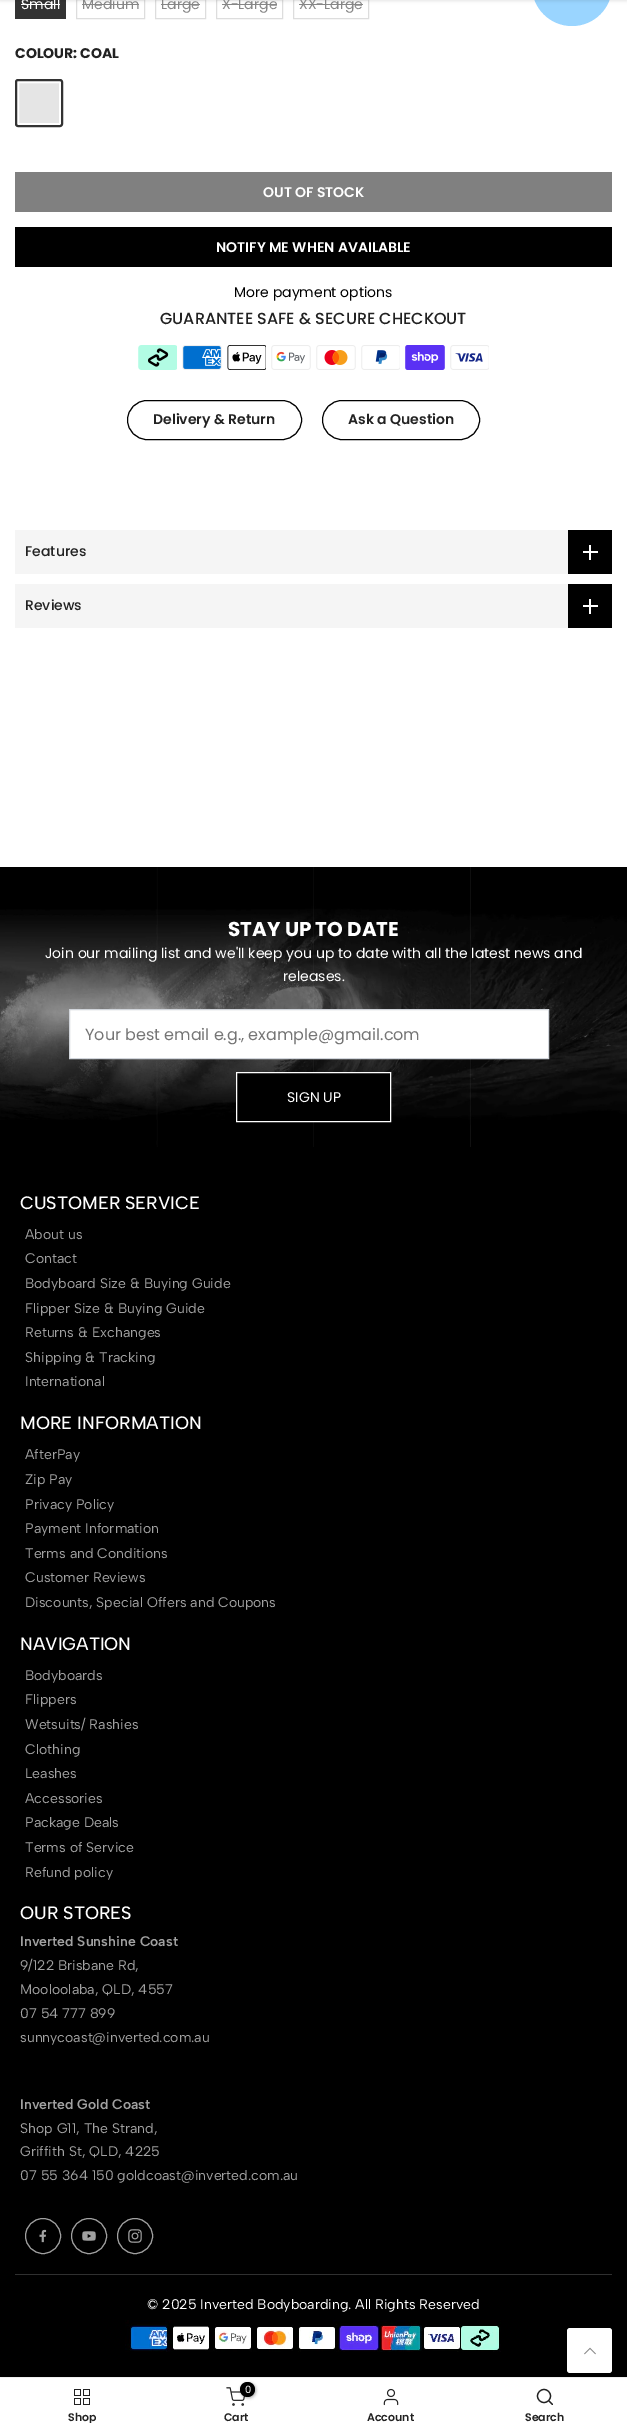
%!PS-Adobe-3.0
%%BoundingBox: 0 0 627 2433
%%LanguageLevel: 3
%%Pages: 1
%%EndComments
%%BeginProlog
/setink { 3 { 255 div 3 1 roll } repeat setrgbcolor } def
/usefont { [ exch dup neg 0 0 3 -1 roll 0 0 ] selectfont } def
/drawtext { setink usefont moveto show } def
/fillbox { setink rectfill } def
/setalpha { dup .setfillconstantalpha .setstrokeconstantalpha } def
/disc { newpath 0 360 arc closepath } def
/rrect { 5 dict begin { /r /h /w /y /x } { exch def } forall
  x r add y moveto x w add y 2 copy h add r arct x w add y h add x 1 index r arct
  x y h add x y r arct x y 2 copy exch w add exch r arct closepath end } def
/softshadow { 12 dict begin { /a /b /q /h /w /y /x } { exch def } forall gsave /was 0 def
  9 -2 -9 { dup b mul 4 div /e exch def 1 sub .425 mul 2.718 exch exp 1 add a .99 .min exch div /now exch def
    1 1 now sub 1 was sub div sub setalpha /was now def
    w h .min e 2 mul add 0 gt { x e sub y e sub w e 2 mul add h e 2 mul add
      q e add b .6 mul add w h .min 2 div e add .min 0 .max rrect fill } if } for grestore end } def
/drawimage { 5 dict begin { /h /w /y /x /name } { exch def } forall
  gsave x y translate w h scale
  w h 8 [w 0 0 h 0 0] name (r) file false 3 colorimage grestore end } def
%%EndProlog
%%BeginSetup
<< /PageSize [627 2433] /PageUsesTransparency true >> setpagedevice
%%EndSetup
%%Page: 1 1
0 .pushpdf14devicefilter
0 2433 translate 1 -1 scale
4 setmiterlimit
0 0 627 2433 255 255 255 fillbox
15 0 51 19 51 51 51 fillbox
21 4 39 1 255 255 255 fillbox
221 221 221 setink
76.5 -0.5 68 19 rectstroke
82 4 57 1 135 135 135 fillbox
221 221 221 setink
155.5 -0.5 50 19 rectstroke
161 4 39 1 135 135 135 fillbox
221 221 221 setink
216.5 -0.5 66 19 rectstroke
222 4 55 1 135 135 135 fillbox
221 221 221 setink
293.5 -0.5 75 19 rectstroke
299 4 64 1 135 135 135 fillbox
154 213 255 setink
532 -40 80 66 40 rrect fill
0 0 0 setink
0 -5 627 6 0 1.5 0.1 softshadow
(Small) 21 9 /Poppins-Regular 14 255 255 255 drawtext
(Medium) 82 9 /Poppins-Regular 14 135 135 135 drawtext
(Large) 161 9 /Poppins-Regular 14 135 135 135 drawtext
(X-Large) 222 9 /Poppins-Regular 14 135 135 135 drawtext
(XX-Large) 299 9 /Poppins-Regular 14 135 135 135 drawtext
(COLOUR: COAL) 15 58 /Poppins-Bold 14 34 34 34 drawtext
229 229 229 setink
15 79 48 48 3 rrect fill
255 255 255 setink
2 setlinewidth
18 82 42 42 rectstroke
51 51 51 setink
16 80 46 46 2 rrect stroke
15 172 597 40 128 128 128 fillbox
(OUT OF STOCK) 263 197 /Poppins-SemiBold 14 255 255 255 drawtext
15 227 597 40 0 0 0 fillbox
(NOTIFY ME WHEN AVAILABLE) 216 252 /Poppins-SemiBold 14 255 255 255 drawtext
(More payment options) 234 297 /Poppins-Regular 14 0 0 0 drawtext
(GUARANTEE SAFE & SECURE CHECKOUT) 160 324 /Poppins-Medium 16 34 34 34 drawtext
(assets/img1.rgb) 138 345 39 25 drawimage
(assets/img2.rgb) 182 345 40 25 drawimage
(assets/img3.rgb) 227 345 39 25 drawimage
(assets/img4.rgb) 271 345 40 25 drawimage
(assets/img5.rgb) 316 345 40 25 drawimage
(assets/img6.rgb) 361 345 39 25 drawimage
(assets/img7.rgb) 405 345 40 25 drawimage
(assets/img8.rgb) 450 345 39 25 drawimage
0 0 0 setink
1 setlinewidth
127.5 400.5 174 39 19.5 rrect stroke
(Delivery & Return) 153 424 /Poppins-SemiBold 14 34 34 34 drawtext
0 0 0 setink
322.5 400.5 157 39 19.5 rrect stroke
(Ask a Question) 348 424 /Poppins-SemiBold 14 34 34 34 drawtext
15 530 553 44 245 245 245 fillbox
(Features) 25 556 /Poppins-Medium 14 34 34 34 drawtext
568 530 44 44 0 0 0 fillbox
589 545 2 15 255 255 255 fillbox
583 551 15 2 255 255 255 fillbox
15 584 553 44 245 245 245 fillbox
(Reviews) 25 610 /Poppins-Medium 14 34 34 34 drawtext
568 584 44 44 0 0 0 fillbox
589 599 2 15 255 255 255 fillbox
583 605 15 2 255 255 255 fillbox
(assets/img9.rgb) 0 867 627 280 drawimage
(STAY UP TO DATE) 228 936 /Poppins-Bold 20 255 255 255 drawtext
(Join our mailing list and we'll keep you up to date with all the latest news and) 45 958 /Poppins-Regular 14 255 255 255 drawtext
(releases.) 283 981 /Poppins-Regular 14 255 255 255 drawtext
69.5 1009.5 moveto 548.5 1009.5 lineto 548.5 1058.5 lineto 69.5 1058.5 lineto closepath gsave fill grestore
209 213 219 setink
stroke
(Your best email e.g., example@gmail.com) 85 1040 /Poppins-Regular 16 117 117 117 drawtext
0 0 0 setink
236.5 1072.5 moveto 390.5 1072.5 lineto 390.5 1121.5 lineto 236.5 1121.5 lineto closepath gsave fill grestore
255 255 255 setink
stroke
(SIGN UP) 287 1102 /Poppins-Regular 14 255 255 255 drawtext
0 1147 627 1230 0 0 0 fillbox
(CUSTOMER SERVICE) 20 1209 /AlbertSans-Medium 18 255 255 255 drawtext
(About us) 25 1239 /AlbertSans-Regular 14 161 161 161 drawtext
(Contact) 25 1263 /AlbertSans-Regular 14 161 161 161 drawtext
(Bodyboard Size & Buying Guide) 25 1288 /AlbertSans-Regular 14 161 161 161 drawtext
(Flipper Size & Buying Guide) 25 1313 /AlbertSans-Regular 14 161 161 161 drawtext
(Returns & Exchanges) 25 1337 /AlbertSans-Regular 14 161 161 161 drawtext
(Shipping & Tracking) 25 1362 /AlbertSans-Regular 14 161 161 161 drawtext
(International) 25 1386 /AlbertSans-Regular 14 161 161 161 drawtext
(MORE INFORMATION) 20 1429 /AlbertSans-Medium 18 255 255 255 drawtext
(AfterPay) 25 1459 /AlbertSans-Regular 14 161 161 161 drawtext
(Zip Pay) 25 1484 /AlbertSans-Regular 14 161 161 161 drawtext
(Privacy Policy) 25 1509 /AlbertSans-Regular 14 161 161 161 drawtext
(Payment Information) 25 1533 /AlbertSans-Regular 14 161 161 161 drawtext
(Terms and Conditions) 25 1558 /AlbertSans-Regular 14 161 161 161 drawtext
(Customer Reviews) 25 1582 /AlbertSans-Regular 14 161 161 161 drawtext
(Discounts, Special Offers and Coupons) 25 1607 /AlbertSans-Regular 14 161 161 161 drawtext
(NAVIGATION) 20 1650 /AlbertSans-Medium 18 255 255 255 drawtext
(Bodyboards) 25 1680 /AlbertSans-Regular 14 161 161 161 drawtext
(Flippers) 25 1704 /AlbertSans-Regular 14 161 161 161 drawtext
(Wetsuits/ Rashies) 25 1729 /AlbertSans-Regular 14 161 161 161 drawtext
(Clothing) 25 1754 /AlbertSans-Regular 14 161 161 161 drawtext
(Leashes) 25 1778 /AlbertSans-Regular 14 161 161 161 drawtext
(Accessories) 25 1803 /AlbertSans-Regular 14 161 161 161 drawtext
(Package Deals) 25 1827 /AlbertSans-Regular 14 161 161 161 drawtext
(Terms of Service) 25 1852 /AlbertSans-Regular 14 161 161 161 drawtext
(Refund policy) 25 1877 /AlbertSans-Regular 14 161 161 161 drawtext
(OUR STORES) 20 1919 /AlbertSans-Medium 18 255 255 255 drawtext
(Inverted Sunshine Coast) 20 1946 /AlbertSans-SemiBold 14 161 161 161 drawtext
(9/122 Brisbane Rd,) 20 1970 /AlbertSans-Regular 14 161 161 161 drawtext
(Mooloolaba, QLD, 4557) 20 1994 /AlbertSans-Regular 14 161 161 161 drawtext
(07 54 777 899) 20 2018 /AlbertSans-Regular 14 161 161 161 drawtext
(sunnycoast@inverted.com.au) 20 2042 /AlbertSans-Regular 14 161 161 161 drawtext
(Inverted Gold Coast) 20 2109 /AlbertSans-SemiBold 14 161 161 161 drawtext
(Shop G11, The Strand,) 20 2133 /AlbertSans-Regular 14 161 161 161 drawtext
(Griffith St, QLD, 4225) 20 2156 /AlbertSans-Regular 14 161 161 161 drawtext
(07 55 364 150 goldcoast@inverted.com.au) 20 2180 /AlbertSans-Regular 14 161 161 161 drawtext
43 2236 17.5 disc stroke
(assets/img10.rgb) 39 2229 8 14 drawimage
89 2236 17.5 disc stroke
(assets/img11.rgb) 82 2231 14 10 drawimage
135 2236 17.5 disc stroke
(assets/img12.rgb) 128 2229 14 14 drawimage
15 2274 597 1 48 48 48 fillbox
(© 2025 Inverted Bodyboarding. All Rights Reserved) 147 2309 /AlbertSans-Regular 14 255 255 255 drawtext
(assets/img13.rgb) 125 2320 376 32 drawimage
gsave
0 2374 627 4 rectclip
0 0 0 setink
0 2378 627 55 0 4.5 0.12 softshadow
grestore
567 2328 45 45 3 rrect fill
(assets/img14.rgb) 584 2347 12 8 drawimage
(assets/img15.rgb) 74 2389 16 16 drawimage
gsave
15 2412 134 11 rectclip
(Shop) 68 2421 /Poppins-SemiBold 11 34 34 34 drawtext
grestore
(assets/img16.rgb) 226 2387 19 19 drawimage
0 0 0 setink
241 2383 15 15 7.5 1.5 0.3 softshadow
247.5 2389.5 7.5 disc fill
(0) 245 2393 /Poppins-Regular 10 255 255 255 drawtext
(Cart) 224 2421 /Poppins-SemiBold 11 34 34 34 drawtext
(assets/img17.rgb) 383 2388 16 18 drawimage
(Account) 367 2421 /Poppins-SemiBold 11 34 34 34 drawtext
1.2 setlinewidth
544 2396 6.5 disc stroke
1 setlinecap
1 setlinejoin
552.5 2404.5 moveto 549 2401 lineto stroke
(Search) 525 2421 /Poppins-SemiBold 11 34 34 34 drawtext
.poppdf14devicefilter showpage
%%EOF
